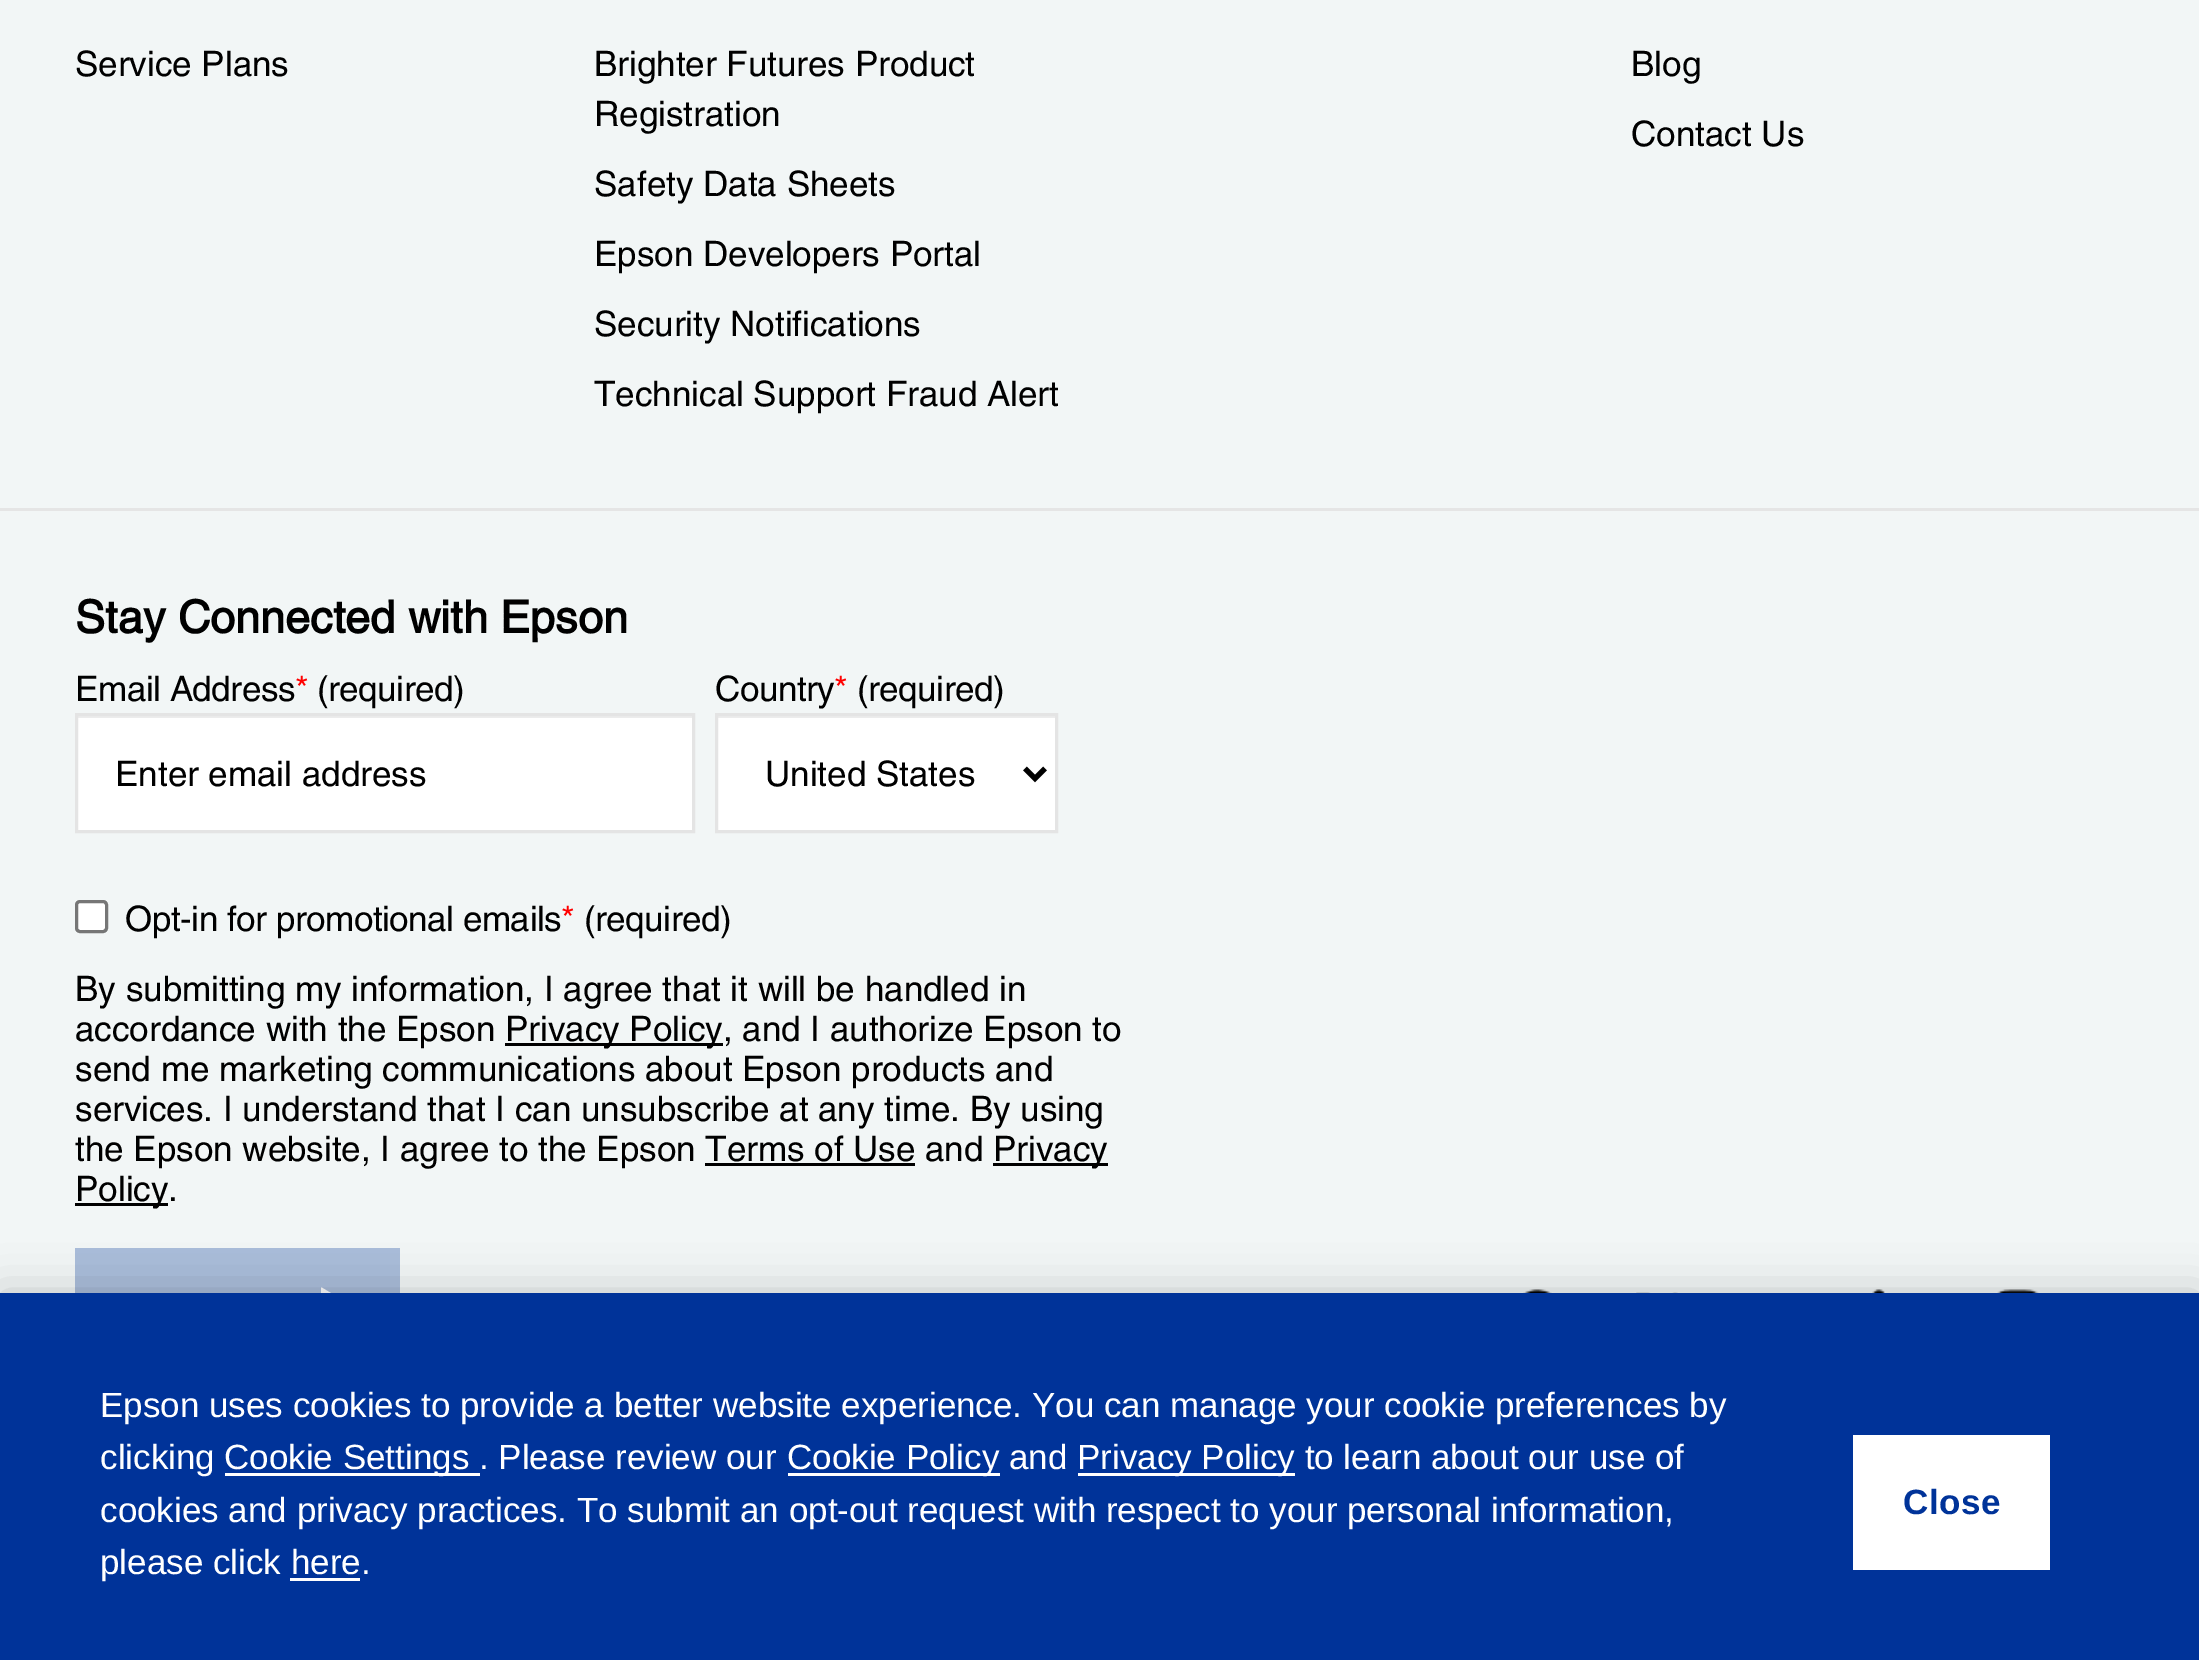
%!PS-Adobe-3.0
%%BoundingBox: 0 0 2199 1660
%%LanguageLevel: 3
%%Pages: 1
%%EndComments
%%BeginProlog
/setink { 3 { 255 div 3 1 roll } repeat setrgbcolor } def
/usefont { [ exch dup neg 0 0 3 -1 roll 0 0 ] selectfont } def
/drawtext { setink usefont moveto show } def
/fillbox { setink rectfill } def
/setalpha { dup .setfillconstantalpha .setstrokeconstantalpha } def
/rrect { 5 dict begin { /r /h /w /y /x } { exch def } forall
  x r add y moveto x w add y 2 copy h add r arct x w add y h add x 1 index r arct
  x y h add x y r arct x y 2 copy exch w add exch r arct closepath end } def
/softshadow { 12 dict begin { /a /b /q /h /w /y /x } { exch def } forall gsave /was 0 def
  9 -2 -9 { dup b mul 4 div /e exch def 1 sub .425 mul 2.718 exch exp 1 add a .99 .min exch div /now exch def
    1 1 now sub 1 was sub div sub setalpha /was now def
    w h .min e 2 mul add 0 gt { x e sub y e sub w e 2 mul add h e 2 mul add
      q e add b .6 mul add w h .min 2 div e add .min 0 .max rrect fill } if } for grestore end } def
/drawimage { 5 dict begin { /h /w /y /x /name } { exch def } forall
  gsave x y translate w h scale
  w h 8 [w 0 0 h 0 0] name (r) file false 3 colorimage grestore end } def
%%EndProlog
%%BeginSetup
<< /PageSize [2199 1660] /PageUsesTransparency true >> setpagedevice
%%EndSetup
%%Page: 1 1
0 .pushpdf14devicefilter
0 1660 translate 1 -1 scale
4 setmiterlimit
0 0 2199 1660 242 246 246 fillbox
(Service Plans) 75 76 /Helvetica-Regular 35 0 0 0 drawtext
(Brighter Futures Product) 594 76 /Helvetica-Regular 35 0 0 0 drawtext
(Registration) 594 126 /Helvetica-Regular 35 0 0 0 drawtext
(Safety Data Sheets) 594 196 /Helvetica-Regular 35 0 0 0 drawtext
(Epson Developers Portal) 594 266 /Helvetica-Regular 35 0 0 0 drawtext
(Security Notifications) 594 336 /Helvetica-Regular 35 0 0 0 drawtext
(Technical Support Fraud Alert) 594 406 /Helvetica-Regular 35 0 0 0 drawtext
(Blog) 1631 76 /Helvetica-Regular 35 0 0 0 drawtext
(Contact Us) 1631 146 /Helvetica-Regular 35 0 0 0 drawtext
0 508 2199 3 229 229 229 fillbox
(Stay Connected with Epson) 75 633 /Helvetica-Bold 45 0 0 0 drawtext
/Helvetica-Regular 35 usefont
75 701 moveto -0.45 0 (Email Address) ashow
255 0 0 setink
295 701 moveto -0.45 0 (*) ashow
0 0 0 setink
317 701 moveto -0.45 0 (\(required\)) ashow
78 718 614 112 255 255 255 fillbox
78 716 615 2 236 236 236 fillbox
228 228 228 setink
3 setlinewidth
76.5 714.5 617 117 rectstroke
(Enter email address) 115 786 /Helvetica-Regular 35 0 0 0 drawtext
715 701 moveto -0.45 0 (Country) ashow
255 0 0 setink
834 701 moveto -0.45 0 (*) ashow
0 0 0 setink
857 701 moveto -0.45 0 (\(required\)) ashow
718 718 337 112 255 255 255 fillbox
718 716 337 2 236 236 236 fillbox
228 228 228 setink
716.5 714.5 340 117 rectstroke
0 0 0 setink
5 setlinewidth
1025 768.5 moveto 1035 778.5 lineto 1045 768.5 lineto stroke
(United States) 765 786 /Helvetica-Regular 35 0 0 0 drawtext
255 255 255 setink
76.5 901.5 30 30 3.5 rrect gsave fill grestore
118 118 118 setink
3 setlinewidth
stroke
0 0 0 setink
125 931 moveto -0.45 0 (Opt-in for promotional emails) ashow
255 0 0 setink
561 931 moveto -0.45 0 (*) ashow
0 0 0 setink
584 931 moveto -0.45 0 (\(required\)) ashow
(By submitting my information, I agree that it will be handled in) 75 1001 /Helvetica-Regular 35 0 0 0 drawtext
(accordance with the Epson) 75 1041 /Helvetica-Regular 35 0 0 0 drawtext
505 1043 218 3 0 0 0 fillbox
(Privacy Policy, and I authorize Epson to) 505 1041 /Helvetica-Regular 35 0 0 0 drawtext
(send me marketing communications about Epson products and) 75 1081 /Helvetica-Regular 35 0 0 0 drawtext
(services. I understand that I can unsubscribe at any time. By using) 75 1121 /Helvetica-Regular 35 0 0 0 drawtext
(the Epson website, I agree to the Epson Terms of Use and) 75 1161 /Helvetica-Regular 35 0 0 0 drawtext
993 1163 115 3 0 0 0 fillbox
(Privacy) 993 1161 /Helvetica-Regular 35 0 0 0 drawtext
705 1163 210 3 0 0 0 fillbox
75 1203 93 3 0 0 0 fillbox
(Policy.) 75 1201 /Helvetica-Regular 35 0 0 0 drawtext
75 1248 325 45 169 188 218 fillbox
255 255 255 setink
322.5 1288 moveto 342.5 1300 lineto 349 1304 349 1303 342.5 1307 curveto 322.5 1319 lineto 321.5 1319.5 lineto 321 1288 lineto 321 1287.5 322 1287.5 322.5 1288 curveto closepath fill
(assets/img1.rgb) 1523 1289 29 4 drawimage
(assets/img2.rgb) 1636 1292 42 1 drawimage
(assets/img3.rgb) 1872 1289 13 4 drawimage
(assets/img4.rgb) 1997 1289 42 4 drawimage
0 0 0 setink
0 1293 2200 367 0 22.5 0.2 softshadow
0 1293 2199 367 0 51 153 fillbox
(Epson uses cookies to provide a better website experience. You can manage your cookie preferences by) 100 1417 /LiberationSans-Regular 35 255 255 255 drawtext
(clicking) 100 1469 /LiberationSans-Regular 35 255 255 255 drawtext
225 1473 255 3 255 255 255 fillbox
(Cookie Settings . Please review our) 224 1469 /LiberationSans-Regular 35 255 255 255 drawtext
788 1473 212 3 255 255 255 fillbox
(Cookie Policy and) 787 1469 /LiberationSans-Regular 35 255 255 255 drawtext
1078 1473 217 3 255 255 255 fillbox
(Privacy Policy to learn about our use of) 1077 1469 /LiberationSans-Regular 35 255 255 255 drawtext
(cookies and privacy practices. To submit an opt-out request with respect to your personal information,) 100 1522 /LiberationSans-Regular 35 255 255 255 drawtext
(please click here.) 100 1574 /LiberationSans-Regular 35 255 255 255 drawtext
290 1578 70 3 255 255 255 fillbox
1853 1435 197 135 255 255 255 fillbox
/LiberationSans-Bold 35 usefont
0 51 153 setink
1903 1514 moveto 0.5 0 (Close) ashow
.poppdf14devicefilter showpage
%%EOF
